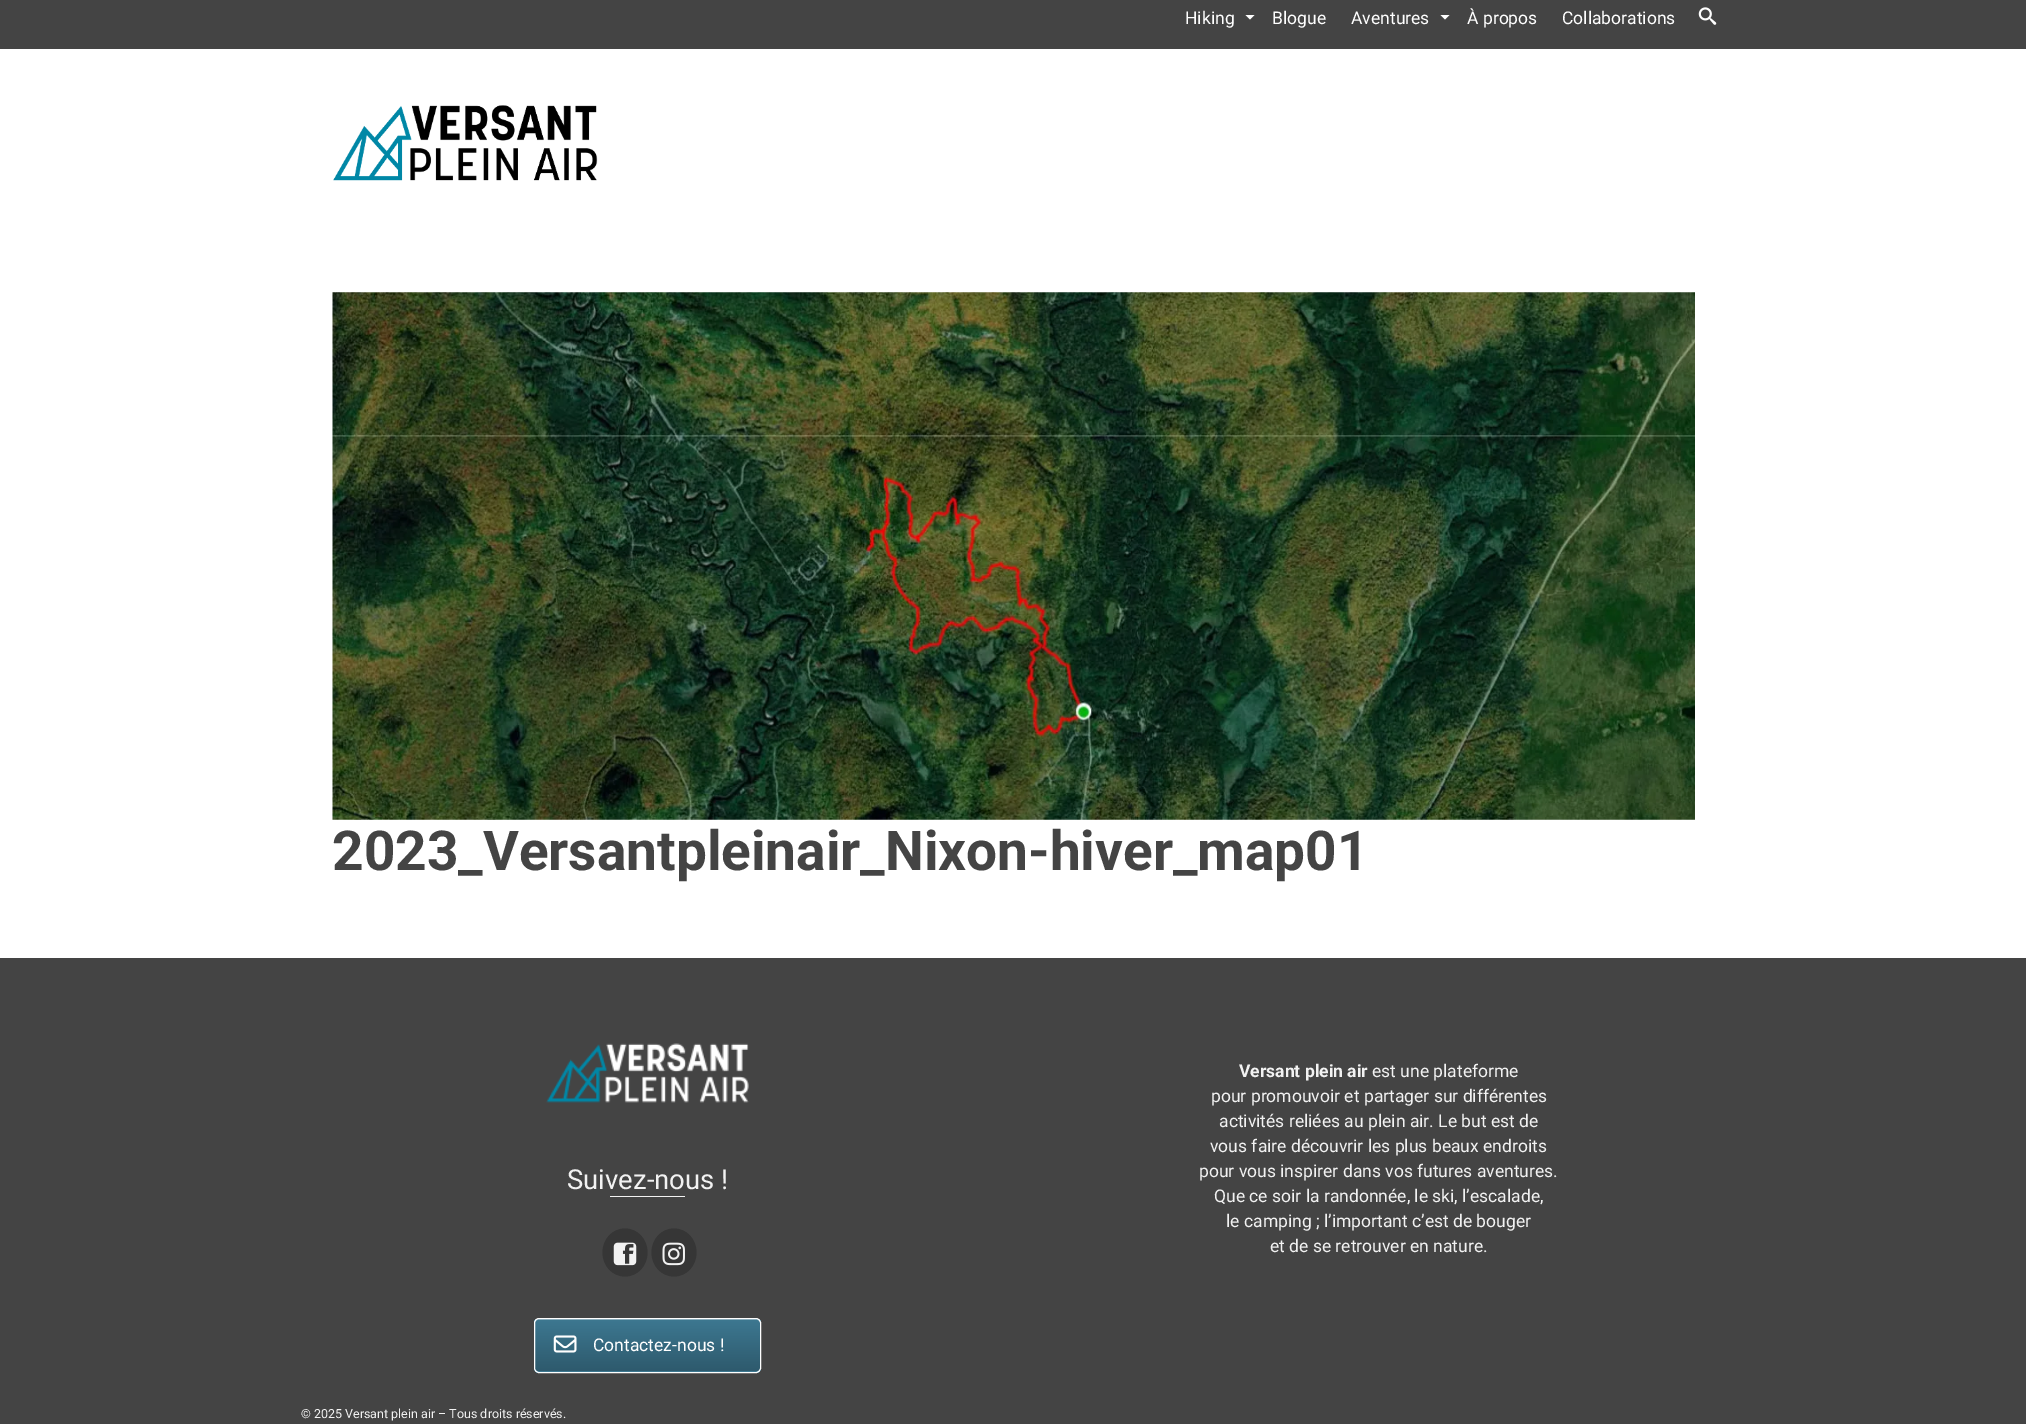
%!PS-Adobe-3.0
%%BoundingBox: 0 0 2026 1424
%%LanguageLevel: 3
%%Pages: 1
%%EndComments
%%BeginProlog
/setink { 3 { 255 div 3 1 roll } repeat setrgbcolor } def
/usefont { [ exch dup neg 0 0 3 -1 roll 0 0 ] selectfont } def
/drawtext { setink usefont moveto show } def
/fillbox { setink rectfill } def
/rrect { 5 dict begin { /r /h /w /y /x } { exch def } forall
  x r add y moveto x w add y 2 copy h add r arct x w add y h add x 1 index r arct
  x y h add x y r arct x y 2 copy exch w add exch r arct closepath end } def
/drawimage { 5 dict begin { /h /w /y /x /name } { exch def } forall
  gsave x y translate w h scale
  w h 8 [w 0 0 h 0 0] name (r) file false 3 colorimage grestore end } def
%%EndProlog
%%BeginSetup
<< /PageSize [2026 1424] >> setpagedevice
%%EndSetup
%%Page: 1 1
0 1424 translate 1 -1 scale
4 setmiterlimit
0 0 2026 1424 255 255 255 fillbox
0 0 2026 49 68 68 68 fillbox
(Hiking) 1185 24 /Roboto-Regular 17.5 255 255 255 drawtext
1245.5 15 moveto 1250 19.5 lineto 1254.5 15 lineto closepath fill
(Blogue) 1272 24 /Roboto-Regular 17.5 255 255 255 drawtext
(Aventures) 1351 24 /Roboto-Regular 17.5 255 255 255 drawtext
1440.5 15 moveto 1445 19.5 lineto 1449.5 15 lineto closepath fill
(À propos) 1467 24 /Roboto-Regular 17.5 255 255 255 drawtext
(Collaborations) 1562 24 /Roboto-Regular 17.5 255 255 255 drawtext
(assets/img1.rgb) 1698 7 19 18 drawimage
(assets/img2.rgb) 333 105 265 76 drawimage
(assets/img3.rgb) 332 292 1363 528 drawimage
(2023_Versantpleinair_Nixon-hiver_map01) 332 870 /Roboto-Bold 55 68 68 68 drawtext
0 958 2026 466 68 68 68 fillbox
(assets/img4.rgb) 546 1043 203 60 drawimage
(Suivez-nous !) 567 1189 /Roboto-Regular 27.5 242 242 242 drawtext
610 1196 75 1 242 242 242 fillbox
54 54 54 setink
625 1228.5 moveto 637.5 1228.5 647.5 1239 647.5 1252.5 curveto 647.5 1266 637.5 1276.5 625 1276.5 curveto 612.5 1276.5 602.5 1266 602.5 1252.5 curveto 602.5 1239 612.5 1228.5 625 1228.5 curveto closepath fill
(assets/img5.rgb) 613 1242 24 24 drawimage
674 1228.5 moveto 686.5 1228.5 696.5 1239 696.5 1252.5 curveto 696.5 1266 686.5 1276.5 674 1276.5 curveto 661.5 1276.5 651.5 1266 651.5 1252.5 curveto 651.5 1239 661.5 1228.5 674 1228.5 curveto closepath fill
(assets/img6.rgb) 662 1242 23 24 drawimage
gsave
534 1318 227 55 5 rrect clip newpath
gsave 534 1319 moveto 761 1319 lineto 761 1371 lineto 534 1371 lineto closepath clip newpath
<< /ShadingType 2 /ColorSpace /DeviceRGB /Coords [535 1371 535 1319] /Extend [true true] /Function << /FunctionType 2 /Domain [0 1] /C0 [0.18 0.353 0.427] /C1 [0.239 0.471 0.569] /N 1 >> >> shfill grestore
gsave 534 1371 moveto 761 1371 lineto 761 1373 lineto 534 1373 lineto closepath clip newpath
<< /ShadingType 2 /ColorSpace /DeviceRGB /Coords [535 1424 535 1371] /Extend [true true] /Function << /FunctionType 2 /Domain [0 1] /C0 [0.18 0.353 0.427] /C1 [0.239 0.471 0.569] /N 1 >> >> shfill grestore
grestore
100 147 167 setink
538 1320 moveto 757 1320 lineto 759 1320 760 1321 760 1323 curveto 760 1322 lineto 760 1320 759 1319 757 1319 curveto 538 1319 lineto 536 1319 535 1320 535 1322 curveto 535 1323 lineto 535 1321 536 1320 538 1320 curveto closepath fill
255 255 255 setink
534.5 1318.5 226 54 4.5 rrect stroke
(assets/img7.rgb) 553 1335 24 18 drawimage
(Contactez-nous !) 593 1351 /Roboto-Regular 17.5 255 255 255 drawtext
(Versant plein air) 1239 1077 /Roboto-Bold 17.5 242 242 242 drawtext
(est une plateforme) 1372 1077 /Roboto-Regular 17.5 242 242 242 drawtext
(pour promouvoir et partager sur différentes) 1211 1102 /Roboto-Regular 17.5 242 242 242 drawtext
(activités reliées au plein air. Le but est de) 1219 1127 /Roboto-Regular 17.5 242 242 242 drawtext
(vous faire découvrir les plus beaux endroits) 1210 1152 /Roboto-Regular 17.5 242 242 242 drawtext
(pour vous inspirer dans vos futures aventures.) 1199 1177 /Roboto-Regular 17.5 242 242 242 drawtext
(Que ce soir la randonnée, le ski, l’escalade,) 1214 1202 /Roboto-Regular 17.5 242 242 242 drawtext
(le camping ; l’important c’est de bouger) 1226 1227 /Roboto-Regular 17.5 242 242 242 drawtext
(et de se retrouver en nature.) 1270 1252 /Roboto-Regular 17.5 242 242 242 drawtext
(© 2025 Versant plein air – Tous droits réservés.) 301 1418 /Roboto-Regular 12.5 242 242 242 drawtext
showpage
%%EOF
